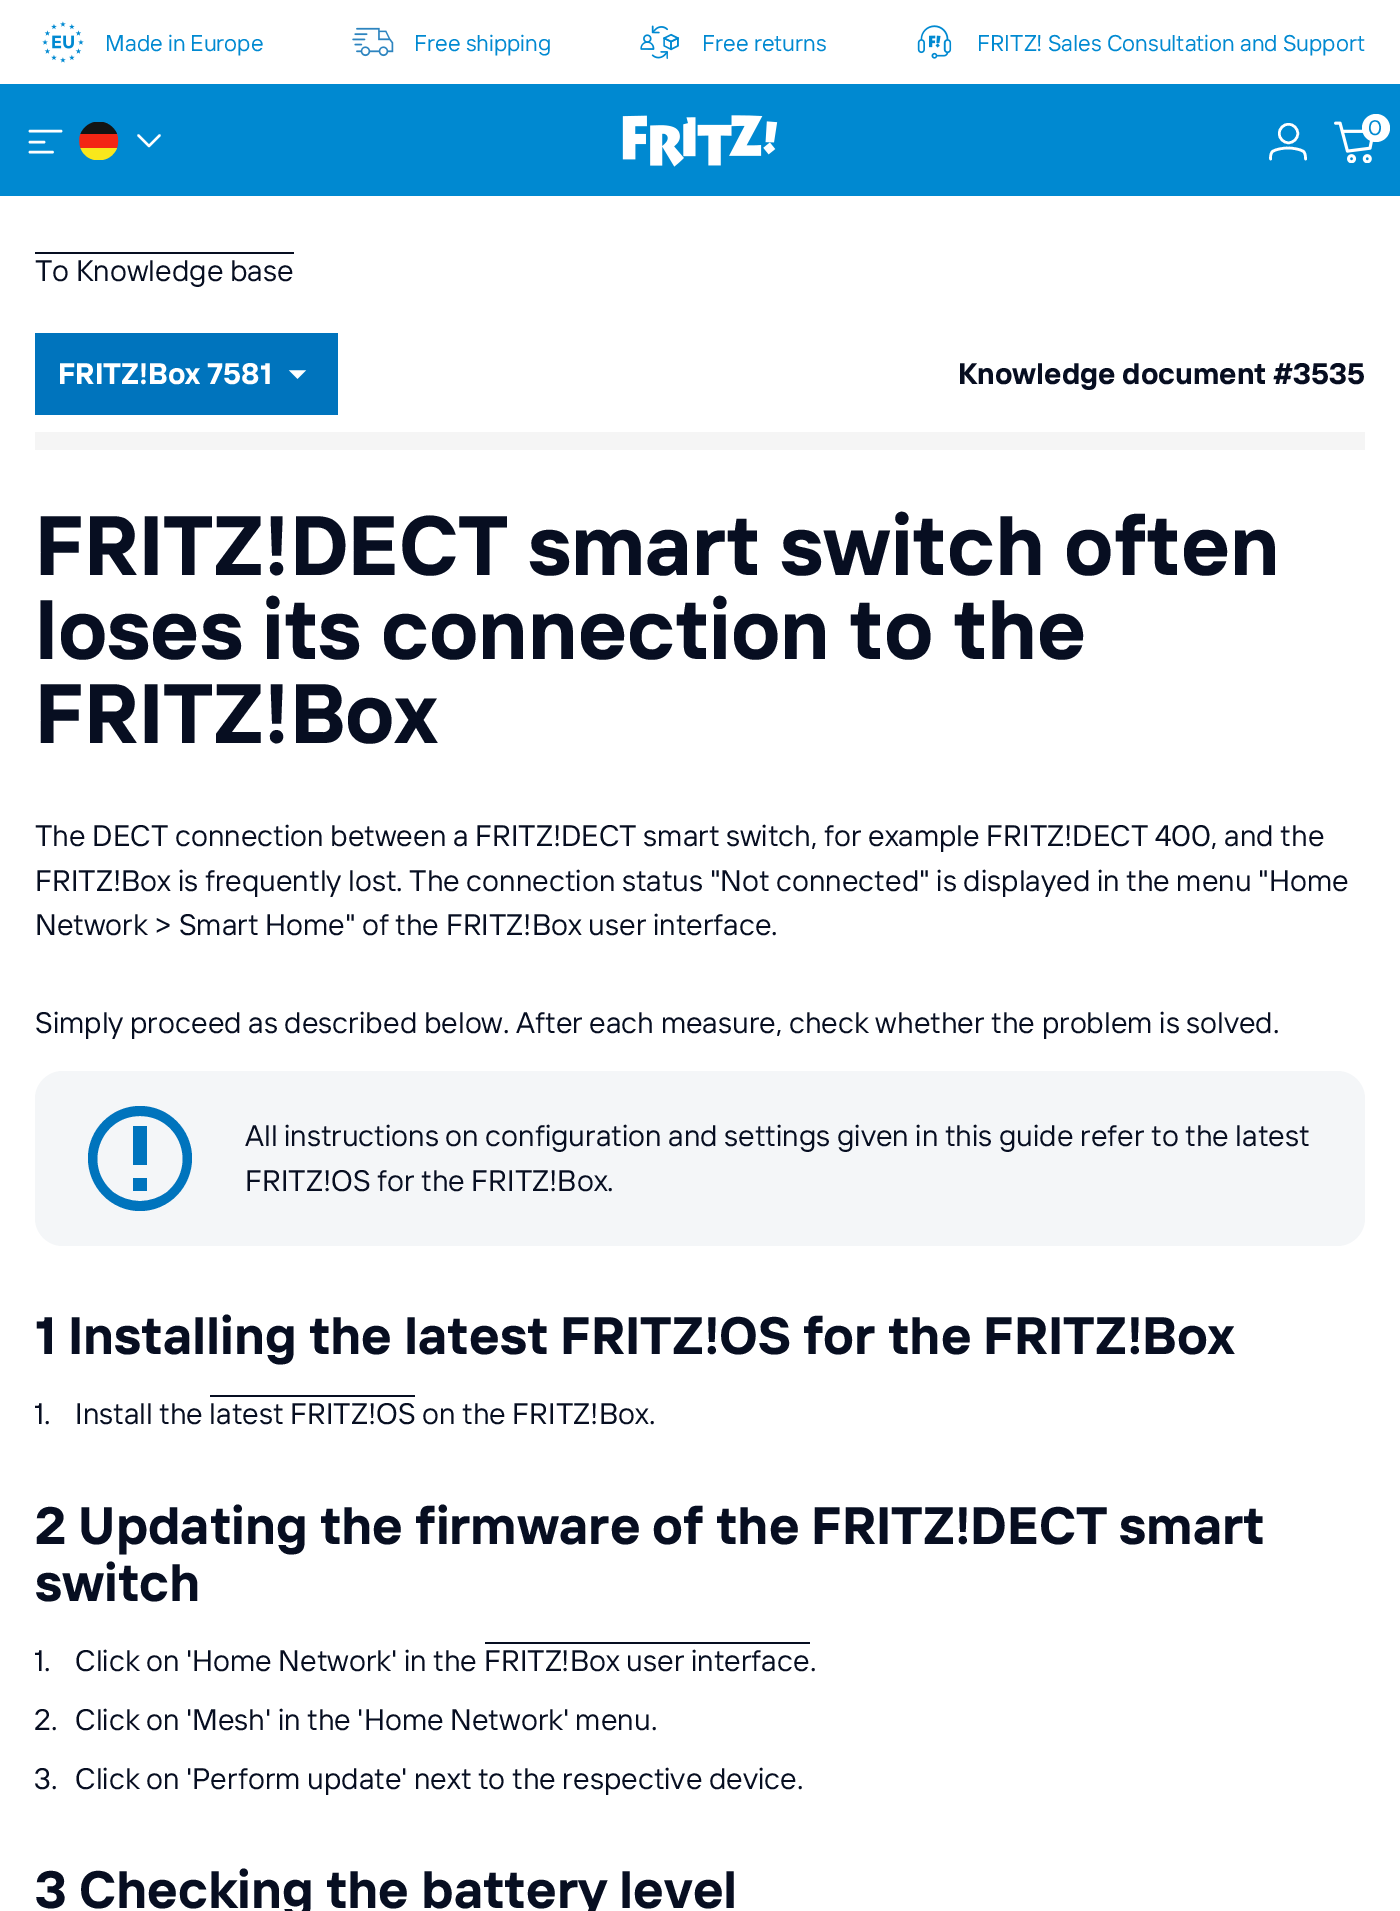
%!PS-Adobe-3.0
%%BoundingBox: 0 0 1400 1911
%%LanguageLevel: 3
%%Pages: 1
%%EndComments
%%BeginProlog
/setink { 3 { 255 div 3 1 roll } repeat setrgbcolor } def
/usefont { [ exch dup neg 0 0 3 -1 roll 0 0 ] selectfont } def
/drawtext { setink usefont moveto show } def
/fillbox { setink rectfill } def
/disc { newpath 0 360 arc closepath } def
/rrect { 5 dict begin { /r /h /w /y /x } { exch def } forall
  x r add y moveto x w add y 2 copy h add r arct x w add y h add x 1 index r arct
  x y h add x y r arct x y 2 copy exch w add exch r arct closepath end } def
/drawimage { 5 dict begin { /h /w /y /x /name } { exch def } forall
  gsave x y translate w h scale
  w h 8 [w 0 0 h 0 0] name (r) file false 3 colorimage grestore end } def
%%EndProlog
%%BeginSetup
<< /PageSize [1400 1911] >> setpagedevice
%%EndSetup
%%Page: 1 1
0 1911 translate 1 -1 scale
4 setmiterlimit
0 0 1400 1911 255 255 255 fillbox
(assets/img1.rgb) 42 21 42 42 drawimage
(Made in Europe) 105 51 /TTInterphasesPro-Regular 22.75 0 137 209 drawtext
(assets/img2.rgb) 352 27 42 30 drawimage
(Free shipping) 414 51 /TTInterphasesPro-Regular 22.75 0 137 209 drawtext
(assets/img3.rgb) 640 25 39 34 drawimage
(Free returns) 702 51 /TTInterphasesPro-Regular 22.75 0 137 209 drawtext
(assets/img4.rgb) 917 25 35 34 drawimage
(FRITZ! Sales Consultation and Support) 977 51 /TTInterphasesPro-Regular 22.75 0 137 209 drawtext
0 84 1400 112 0 137 209 fillbox
255 255 255 setink
2.6 setlinewidth
1 setlinecap
30 131 moveto 61 131 lineto 30 142 moveto 44 142 lineto 30 152 moveto 52.5 152 lineto stroke
243 38 20 setink
117 134 moveto 80.5 134 lineto 78.5 138.5 79 144.5 81 149 curveto 116.5 149 lineto 118.5 144.5 118.5 138.5 117 134 curveto closepath fill
gsave
79 122 39 38 rectclip
248 231 28 setink
117 148 moveto 80.5 148 lineto 86.5 164.5 110.5 164.5 117 148 curveto closepath fill
19 20 19 setink
98.5 121.5 moveto 106.5 121.5 114 126.5 117 134 curveto 80.5 134 lineto 83.5 126.5 91 121.5 98.5 121.5 curveto closepath fill
grestore
255 255 255 setink
2.4 setlinewidth
1 setlinejoin
138.5 135.5 moveto 149 146 lineto 159.5 135.5 lineto stroke
(assets/img5.rgb) 622 115 156 52 drawimage
2.5 setlinewidth
0 setlinecap
0 setlinejoin
1288.5 133.5 9.25 disc stroke
2.6 setlinewidth
1 setlinecap
1288 148 moveto 1292 148 1301 149 1304 152 curveto 1305.5 154.5 1305.5 156.5 1305.5 159 curveto 1288 148 moveto 1284 148 1275 149 1272 152 curveto 1270.5 154.5 1270.5 156.5 1270.5 159 curveto stroke
(assets/img6.rgb) 1334 121 39 42 drawimage
1376 128 14 disc fill
(0) 1368 135 /TTInterphasesPro-Regular 21 0 137 209 drawtext
(To Knowledge base) 35 281 /TTInterphasesPro-Regular 29.75 7 14 33 drawtext
35 252 259 2 7 14 33 fillbox
35 432 1330 18 245 245 245 fillbox
35 333 303 82 0 116 189 fillbox
(FRITZ!Box 7581) 58 384 /TTInterphasesPro-Bold 29.75 255 255 255 drawtext
(assets/img7.rgb) 288 370 19 9 drawimage
(Knowledge document #3535) 958 384 /TTInterphasesPro-Bold 29.75 7 14 33 drawtext
(FRITZ!DECT smart switch often) 35 575 /TTInterphasesPro-Bold 84 7 14 33 drawtext
(loses its connection to the) 35 659 /TTInterphasesPro-Bold 84 7 14 33 drawtext
(FRITZ!Box) 35 743 /TTInterphasesPro-Bold 84 7 14 33 drawtext
(The DECT connection between a FRITZ!DECT smart switch, for example FRITZ!DECT 400, and the) 35 846 /TTInterphasesPro-Regular 29.75 7 14 33 drawtext
(FRITZ!Box is frequently lost. The connection status "Not connected" is displayed in the menu "Home) 35 891 /TTInterphasesPro-Regular 29.75 7 14 33 drawtext
(Network > Smart Home" of the FRITZ!Box user interface.) 35 935 /TTInterphasesPro-Regular 29.75 7 14 33 drawtext
(Simply proceed as described below. After each measure, check whether the problem is solved.) 35 1033 /TTInterphasesPro-Regular 29.75 7 14 33 drawtext
244 246 248 setink
35 1071 1330 175 28 rrect fill
0 116 189 setink
140 1116 moveto 100 1116 82 1166 113 1192 curveto 121 1198 130 1201 140 1201 curveto 150 1201 159 1198 167 1192 curveto 198 1166 180 1116 140 1116 curveto closepath 140 1106 moveto 169 1106 192 1130 192 1158 curveto 192 1187 169 1211 140 1211 curveto 111 1211 88 1187 88 1158 curveto 88 1130 111 1106 140 1106 curveto closepath 133 1178 moveto 147 1178 lineto 147 1191 lineto 133 1191 lineto closepath 133 1126 moveto 147 1126 lineto 147 1165 lineto 133 1165 lineto closepath fill
(All instructions on configuration and settings given in this guide refer to the latest) 245 1146 /TTInterphasesPro-Regular 29.75 7 14 33 drawtext
(FRITZ!OS for the FRITZ!Box.) 245 1191 /TTInterphasesPro-Regular 29.75 7 14 33 drawtext
(1 Installing the latest FRITZ!OS for the FRITZ!Box) 35 1354 /TTInterphasesPro-Bold 52.5 7 14 33 drawtext
210 1395 205 2 7 14 33 fillbox
(1.) 34 1424 /TTInterphasesPro-Regular 29.75 7 14 33 drawtext
(Install the latest FRITZ!OS) 75 1424 /TTInterphasesPro-Regular 29.75 7 14 33 drawtext
(on the FRITZ!Box.) 422 1424 /TTInterphasesPro-Regular 29.75 7 14 33 drawtext
(2 Updating the firmware of the FRITZ!DECT smart) 35 1544 /TTInterphasesPro-Bold 52.5 7 14 33 drawtext
(switch) 35 1601 /TTInterphasesPro-Bold 52.5 7 14 33 drawtext
485 1642 325 2 7 14 33 fillbox
(1.) 34 1671 /TTInterphasesPro-Regular 29.75 7 14 33 drawtext
(Click on 'Home Network' in the FRITZ!Box user interface) 75 1671 /TTInterphasesPro-Regular 29.75 7 14 33 drawtext
(.) 810 1671 /TTInterphasesPro-Regular 29.75 7 14 33 drawtext
(2.) 34 1730 /TTInterphasesPro-Regular 29.75 7 14 33 drawtext
(Click on 'Mesh' in the 'Home Network' menu.) 75 1730 /TTInterphasesPro-Regular 29.75 7 14 33 drawtext
(3.) 34 1789 /TTInterphasesPro-Regular 29.75 7 14 33 drawtext
(Click on 'Perform update' next to the respective device.) 75 1789 /TTInterphasesPro-Regular 29.75 7 14 33 drawtext
(3 Checking the battery level) 35 1908 /TTInterphasesPro-Bold 52.5 7 14 33 drawtext
showpage
%%EOF
